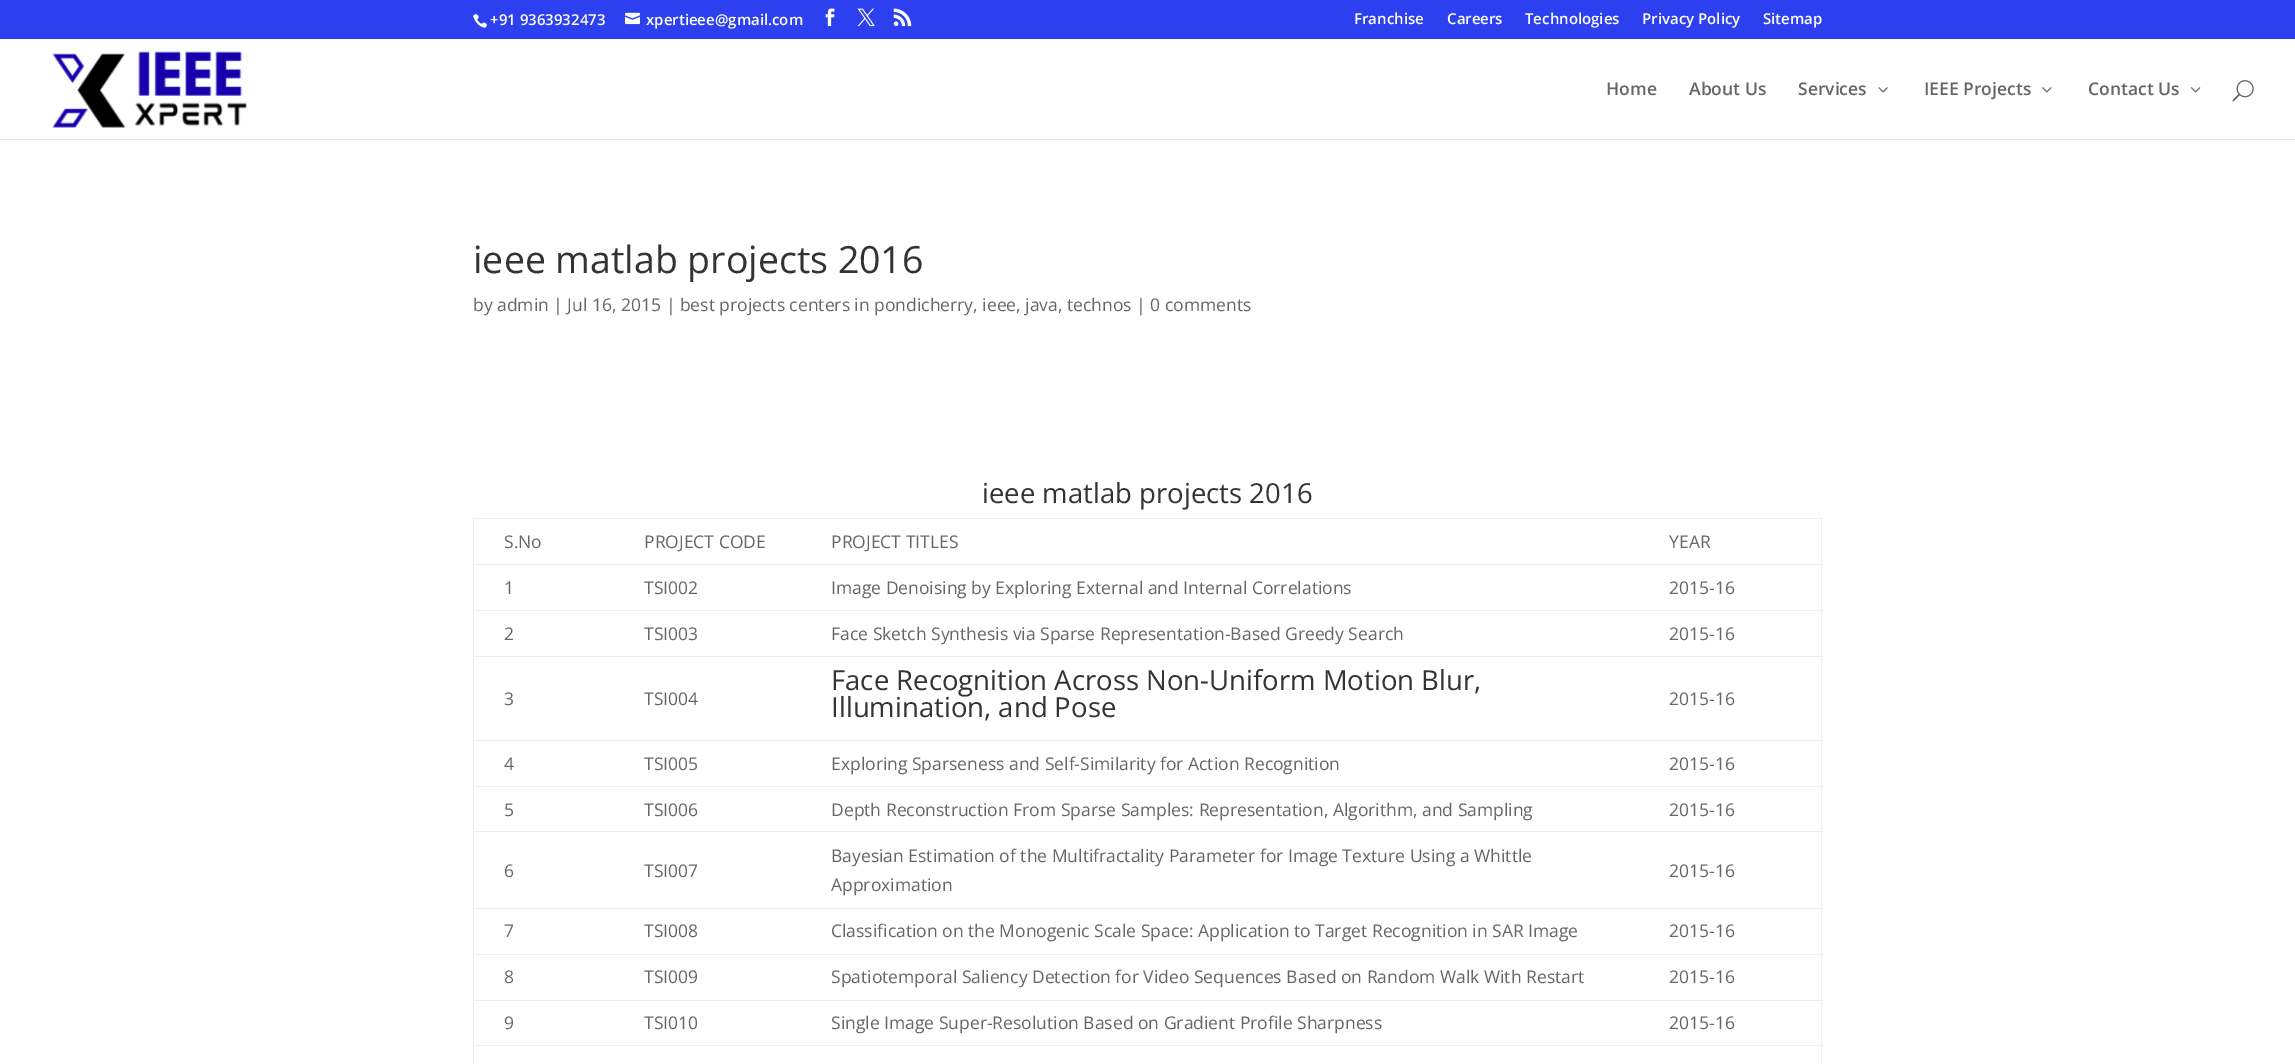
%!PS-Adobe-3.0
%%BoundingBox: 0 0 2295 1064
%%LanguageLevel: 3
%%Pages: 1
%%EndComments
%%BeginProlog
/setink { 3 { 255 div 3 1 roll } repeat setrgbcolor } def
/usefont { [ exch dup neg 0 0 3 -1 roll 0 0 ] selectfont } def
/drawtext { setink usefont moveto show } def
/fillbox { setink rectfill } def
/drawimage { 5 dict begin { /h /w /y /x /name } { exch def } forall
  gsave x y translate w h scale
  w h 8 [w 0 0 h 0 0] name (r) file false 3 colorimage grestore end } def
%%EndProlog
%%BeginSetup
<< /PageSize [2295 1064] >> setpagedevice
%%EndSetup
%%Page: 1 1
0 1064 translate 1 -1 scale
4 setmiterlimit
0 0 2295 1064 255 255 255 fillbox
0 0 2295 39 45 64 239 fillbox
(assets/img1.rgb) 473 14 14 14 drawimage
(+91 9363932473) 490 25 /OpenSans-SemiBold 15 255 255 255 drawtext
(assets/img2.rgb) 625 12 15 13 drawimage
(xpertieee@gmail.com) 646 25 /OpenSans-SemiBold 15 255 255 255 drawtext
(assets/img3.rgb) 825 8 10 19 drawimage
(assets/img4.rgb) 857 8 18 19 drawimage
(assets/img5.rgb) 893 8 19 19 drawimage
(Franchise) 1354 24 /OpenSans-SemiBold 15 255 255 255 drawtext
(Careers) 1447 24 /OpenSans-SemiBold 15 255 255 255 drawtext
(Technologies) 1525 24 /OpenSans-SemiBold 15 255 255 255 drawtext
(Privacy Policy) 1642 24 /OpenSans-SemiBold 15 255 255 255 drawtext
(Sitemap) 1763 24 /OpenSans-SemiBold 15 255 255 255 drawtext
0 139 2295 1 230 230 230 fillbox
(assets/img6.rgb) 52 51 196 77 drawimage
(Home) 1606 95 /OpenSans-SemiBold 17.5 102 102 102 drawtext
(About Us) 1689 95 /OpenSans-SemiBold 17.5 102 102 102 drawtext
(Services) 1798 95 /OpenSans-SemiBold 17.5 102 102 102 drawtext
(assets/img7.rgb) 1878 87 10 6 drawimage
(IEEE Projects) 1924 95 /OpenSans-SemiBold 17.5 102 102 102 drawtext
(assets/img8.rgb) 2042 87 10 6 drawimage
(Contact Us) 2088 95 /OpenSans-SemiBold 17.5 102 102 102 drawtext
(assets/img9.rgb) 2191 87 10 6 drawimage
(assets/img10.rgb) 2232 80 22 22 drawimage
(ieee matlab projects 2016) 473 273 /OpenSans-Regular 37.5 51 51 51 drawtext
(by admin | Jul 16, 2015 | best projects centers in pondicherry, ieee, java, technos | 0 comments) 473 311 /OpenSans-Regular 17.5 102 102 102 drawtext
(ieee matlab projects 2016) 982 503 /OpenSans-Regular 27.5 51 51 51 drawtext
473 518 1350 1 238 238 238 fillbox
1821 518 1 546 238 238 238 fillbox
473 518 1 546 238 238 238 fillbox
(S.No) 504 548 /OpenSans-Regular 17.5 102 102 102 drawtext
(PROJECT CODE) 644 548 /OpenSans-Regular 17.5 102 102 102 drawtext
(PROJECT TITLES) 831 548 /OpenSans-Regular 17.5 102 102 102 drawtext
(YEAR) 1669 548 /OpenSans-Regular 17.5 102 102 102 drawtext
(1) 504 594 /OpenSans-Regular 17.5 102 102 102 drawtext
(TSI002) 644 594 /OpenSans-Regular 17.5 102 102 102 drawtext
(Image Denoising by Exploring External and Internal Correlations) 831 594 /OpenSans-Regular 17.5 102 102 102 drawtext
473 564 1350 1 238 238 238 fillbox
(2015-16) 1669 594 /OpenSans-Regular 17.5 102 102 102 drawtext
(2) 504 640 /OpenSans-Regular 17.5 102 102 102 drawtext
(TSI003) 644 640 /OpenSans-Regular 17.5 102 102 102 drawtext
(Face Sketch Synthesis via Sparse Representation-Based Greedy Search) 831 640 /OpenSans-Regular 17.5 102 102 102 drawtext
473 610 1350 1 238 238 238 fillbox
(2015-16) 1669 640 /OpenSans-Regular 17.5 102 102 102 drawtext
(3) 504 705 /OpenSans-Regular 17.5 102 102 102 drawtext
(TSI004) 644 705 /OpenSans-Regular 17.5 102 102 102 drawtext
(Face Recognition Across Non-Uniform Motion Blur,) 831 690 /OpenSans-Regular 27.5 51 51 51 drawtext
(Illumination, and Pose) 831 717 /OpenSans-Regular 27.5 51 51 51 drawtext
473 656 1350 1 238 238 238 fillbox
(2015-16) 1669 705 /OpenSans-Regular 17.5 102 102 102 drawtext
(4) 504 770 /OpenSans-Regular 17.5 102 102 102 drawtext
(TSI005) 644 770 /OpenSans-Regular 17.5 102 102 102 drawtext
(Exploring Sparseness and Self-Similarity for Action Recognition) 831 770 /OpenSans-Regular 17.5 102 102 102 drawtext
473 740 1350 1 238 238 238 fillbox
(2015-16) 1669 770 /OpenSans-Regular 17.5 102 102 102 drawtext
(5) 504 816 /OpenSans-Regular 17.5 102 102 102 drawtext
(TSI006) 644 816 /OpenSans-Regular 17.5 102 102 102 drawtext
(Depth Reconstruction From Sparse Samples: Representation, Algorithm, and Sampling) 831 816 /OpenSans-Regular 17.5 102 102 102 drawtext
473 786 1350 1 238 238 238 fillbox
(2015-16) 1669 816 /OpenSans-Regular 17.5 102 102 102 drawtext
(6) 504 877 /OpenSans-Regular 17.5 102 102 102 drawtext
(TSI007) 644 877 /OpenSans-Regular 17.5 102 102 102 drawtext
(Bayesian Estimation of the Multifractality Parameter for Image Texture Using a Whittle) 831 862 /OpenSans-Regular 17.5 102 102 102 drawtext
(Approximation) 831 891 /OpenSans-Regular 17.5 102 102 102 drawtext
473 831 1350 1 238 238 238 fillbox
(2015-16) 1669 877 /OpenSans-Regular 17.5 102 102 102 drawtext
(7) 504 937 /OpenSans-Regular 17.5 102 102 102 drawtext
(TSI008) 644 937 /OpenSans-Regular 17.5 102 102 102 drawtext
(Classification on the Monogenic Scale Space: Application to Target Recognition in SAR Image) 831 937 /OpenSans-Regular 17.5 102 102 102 drawtext
473 908 1350 1 238 238 238 fillbox
(2015-16) 1669 937 /OpenSans-Regular 17.5 102 102 102 drawtext
(8) 504 983 /OpenSans-Regular 17.5 102 102 102 drawtext
(TSI009) 644 983 /OpenSans-Regular 17.5 102 102 102 drawtext
(Spatiotemporal Saliency Detection for Video Sequences Based on Random Walk With Restart) 831 983 /OpenSans-Regular 17.5 102 102 102 drawtext
473 954 1350 1 238 238 238 fillbox
(2015-16) 1669 983 /OpenSans-Regular 17.5 102 102 102 drawtext
(9) 504 1029 /OpenSans-Regular 17.5 102 102 102 drawtext
(TSI010) 644 1029 /OpenSans-Regular 17.5 102 102 102 drawtext
(Single Image Super-Resolution Based on Gradient Profile Sharpness) 831 1029 /OpenSans-Regular 17.5 102 102 102 drawtext
473 1000 1350 1 238 238 238 fillbox
(2015-16) 1669 1029 /OpenSans-Regular 17.5 102 102 102 drawtext
473 1045 1350 1 238 238 238 fillbox
showpage
%%EOF
